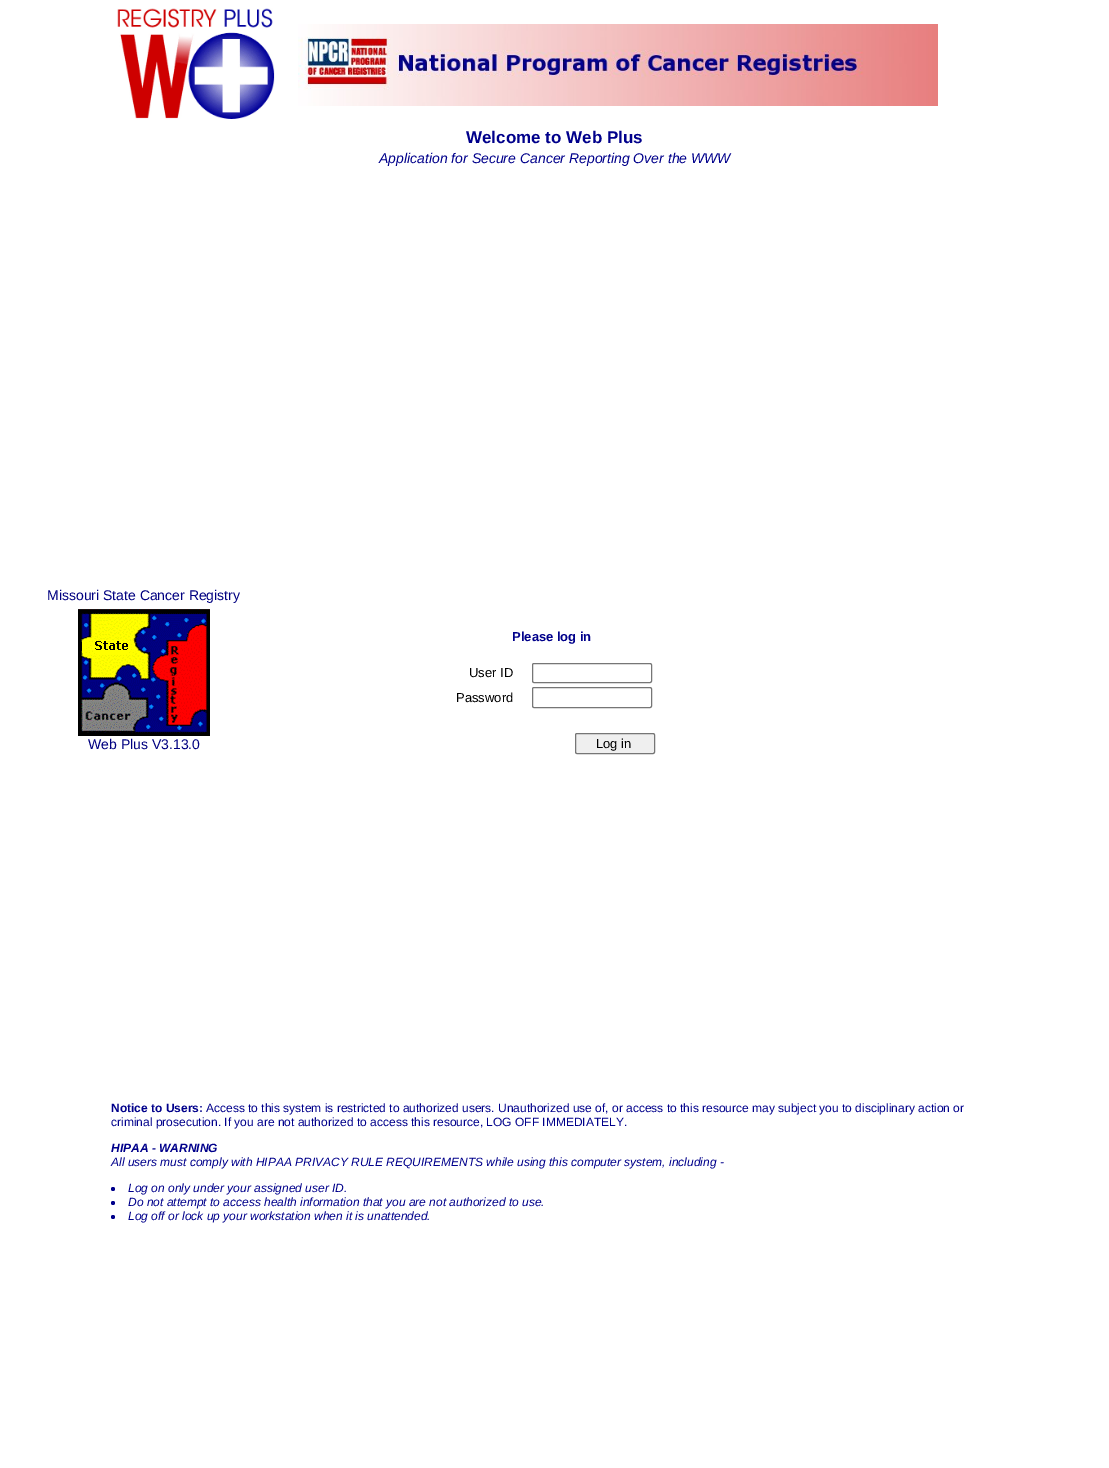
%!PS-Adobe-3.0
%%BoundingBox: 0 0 1109 1468
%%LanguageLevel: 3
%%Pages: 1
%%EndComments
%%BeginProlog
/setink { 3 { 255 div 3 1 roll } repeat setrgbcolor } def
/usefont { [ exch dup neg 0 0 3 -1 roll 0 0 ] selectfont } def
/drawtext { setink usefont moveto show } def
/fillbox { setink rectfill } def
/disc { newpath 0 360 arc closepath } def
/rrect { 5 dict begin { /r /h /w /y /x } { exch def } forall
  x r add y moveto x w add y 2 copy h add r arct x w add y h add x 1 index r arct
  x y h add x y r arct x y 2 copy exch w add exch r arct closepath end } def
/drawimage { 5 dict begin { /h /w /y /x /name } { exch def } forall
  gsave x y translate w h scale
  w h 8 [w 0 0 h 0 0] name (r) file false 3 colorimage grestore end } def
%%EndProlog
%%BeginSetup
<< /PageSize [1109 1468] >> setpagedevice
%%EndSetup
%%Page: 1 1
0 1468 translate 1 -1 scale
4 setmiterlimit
0 0 1109 1468 255 255 255 fillbox
(assets/img1.rgb) 117 8 158 111 drawimage
(assets/img2.rgb) 298 24 640 82 drawimage
(Welcome to Web Plus) 466 143 /LiberationSans-Bold 17 0 0 139 drawtext
(Application for Secure Cancer Reporting Over the WWW) 379 163 /LiberationSans-Italic 14 0 0 139 drawtext
(Missouri State Cancer Registry) 47 600 /LiberationSans-Regular 14 0 0 128 drawtext
(assets/img3.rgb) 78 609 132 127 drawimage
(Web Plus V3.13.0) 88 749 /LiberationSans-Regular 14 0 0 128 drawtext
(Please log in) 512 641 /LiberationSans-Bold 13 0 0 139 drawtext
(User ID) 469 677 /LiberationSans-Regular 13 0 0 0 drawtext
118 118 118 setink
532.5 663.5 119 19 1.5 rrect stroke
(Password) 456 702 /LiberationSans-Regular 13 0 0 0 drawtext
118 118 118 setink
532.5 687.5 119 20 1.5 rrect stroke
239 239 239 setink
575.5 733.5 79 20 1.5 rrect gsave fill grestore
118 118 118 setink
stroke
(Log in) 596 748 /LiberationSans-Regular 13 0 0 0 drawtext
(Notice to Users:) 111 1112 /LiberationSans-Bold 12 0 0 139 drawtext
(Access to this system is restricted to authorized users. Unauthorized use of, or access to this resource may subject you to disciplinary action or) 206 1112 /LiberationSans-Regular 12 0 0 139 drawtext
(criminal prosecution. If you are not authorized to access this resource, LOG OFF IMMEDIATELY.) 111 1126 /LiberationSans-Regular 12 0 0 139 drawtext
(HIPAA - WARNING) 111 1152 /LiberationSans-BoldItalic 12 0 0 139 drawtext
(All users must comply with HIPAA PRIVACY RULE REQUIREMENTS while using this computer system, including -) 111 1166 /LiberationSans-Italic 12 0 0 139 drawtext
113 1189 2 disc fill
(Log on only under your assigned user ID.) 128 1192 /LiberationSans-Italic 12 0 0 139 drawtext
113 1203 2 disc fill
(Do not attempt to access health information that you are not authorized to use.) 128 1206 /LiberationSans-Italic 12 0 0 139 drawtext
113 1217 2 disc fill
(Log off or lock up your workstation when it is unattended.) 128 1220 /LiberationSans-Italic 12 0 0 139 drawtext
showpage
%%EOF
